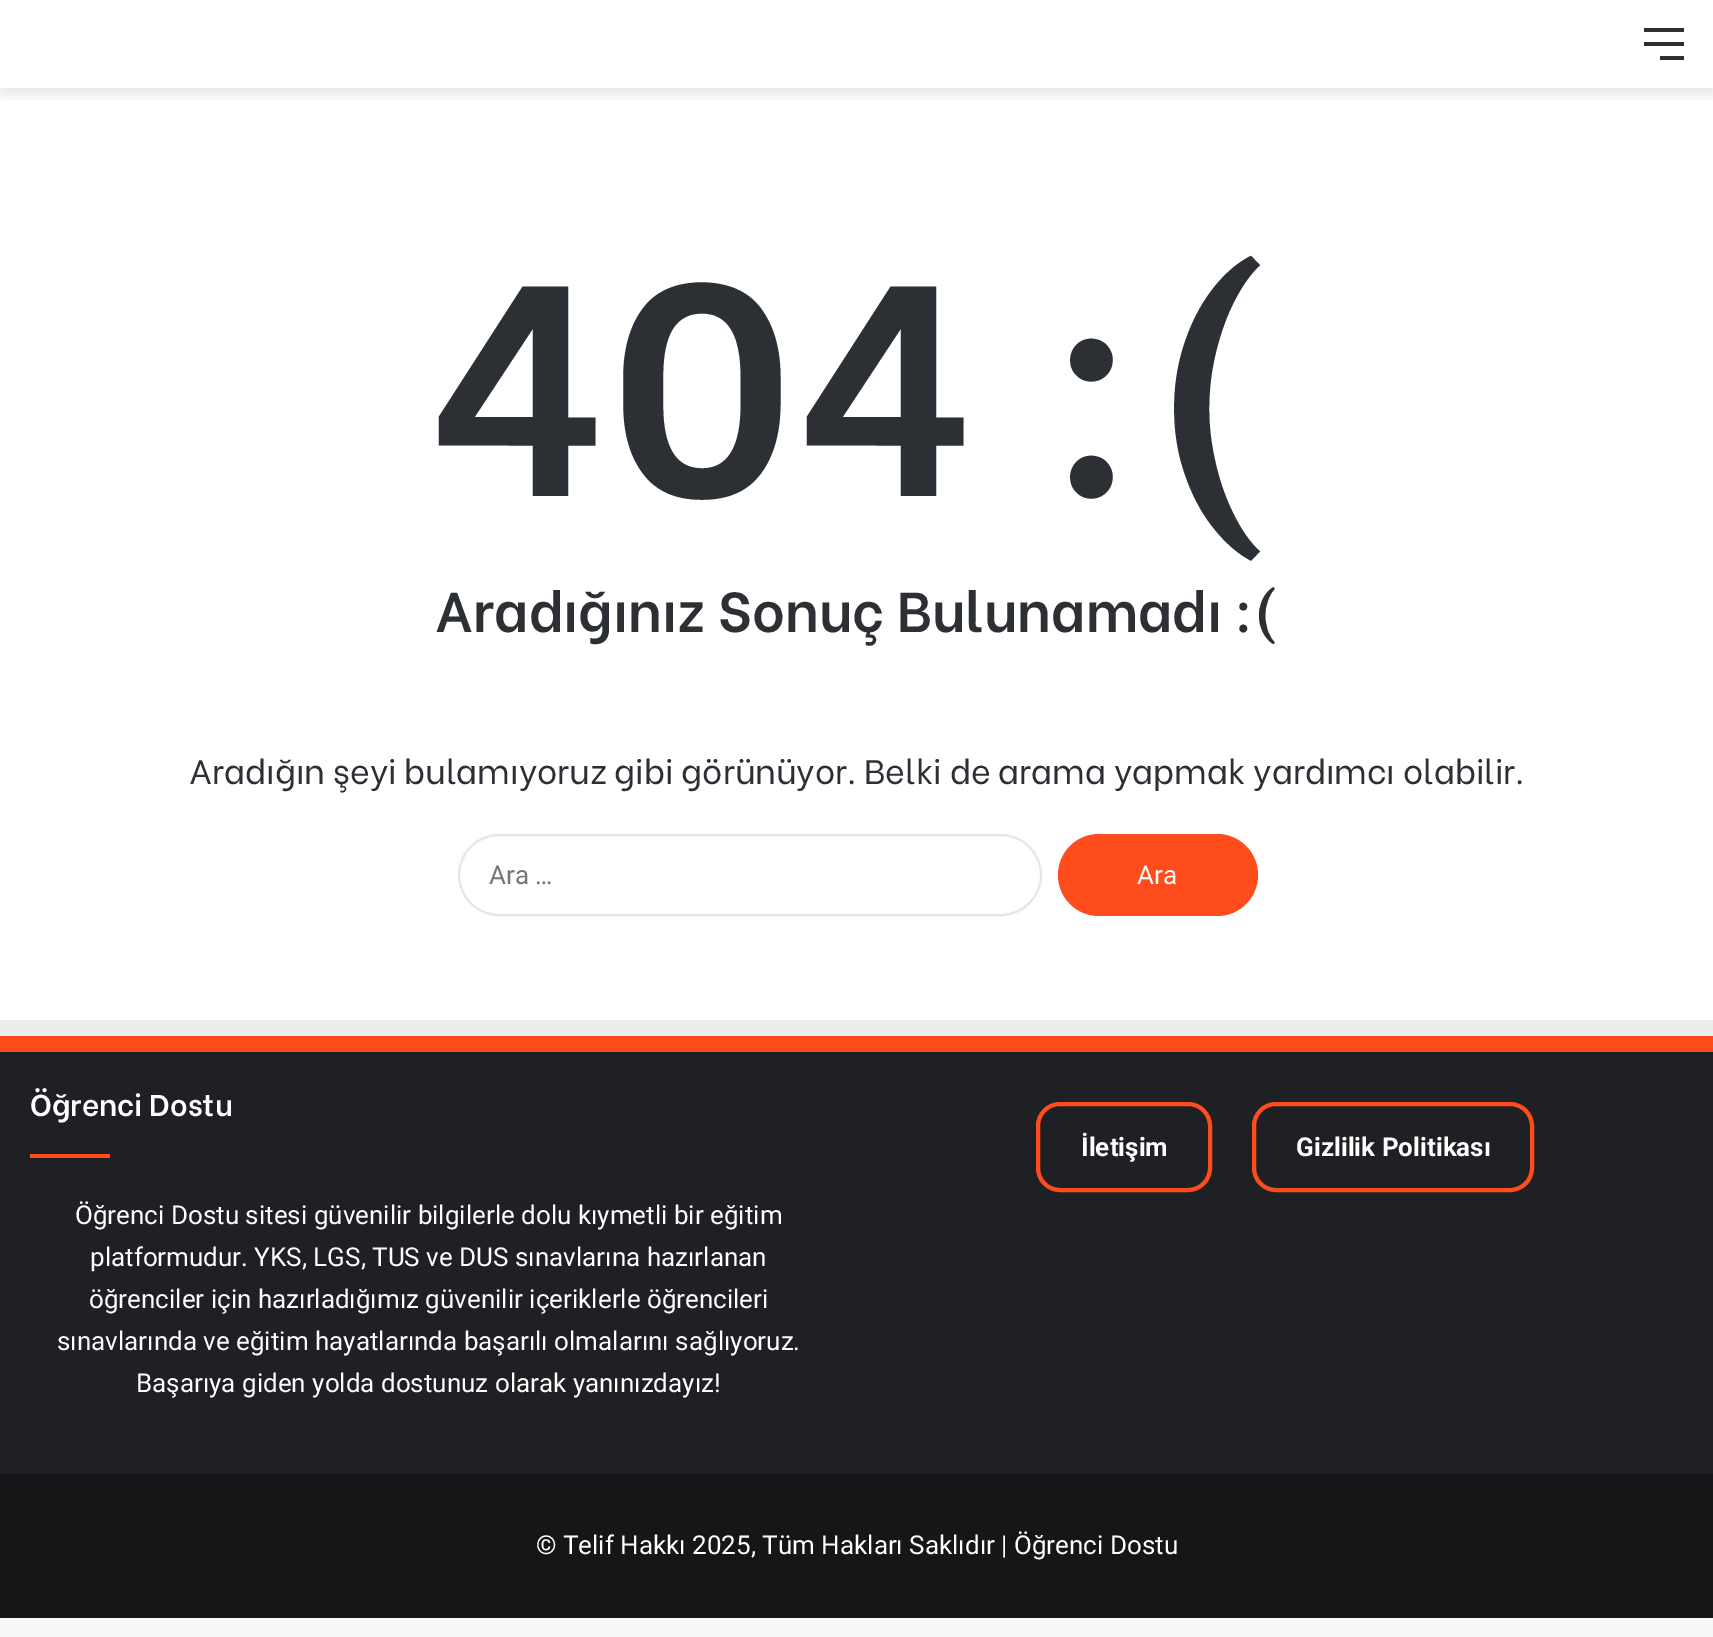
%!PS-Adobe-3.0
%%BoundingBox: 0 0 1713 1637
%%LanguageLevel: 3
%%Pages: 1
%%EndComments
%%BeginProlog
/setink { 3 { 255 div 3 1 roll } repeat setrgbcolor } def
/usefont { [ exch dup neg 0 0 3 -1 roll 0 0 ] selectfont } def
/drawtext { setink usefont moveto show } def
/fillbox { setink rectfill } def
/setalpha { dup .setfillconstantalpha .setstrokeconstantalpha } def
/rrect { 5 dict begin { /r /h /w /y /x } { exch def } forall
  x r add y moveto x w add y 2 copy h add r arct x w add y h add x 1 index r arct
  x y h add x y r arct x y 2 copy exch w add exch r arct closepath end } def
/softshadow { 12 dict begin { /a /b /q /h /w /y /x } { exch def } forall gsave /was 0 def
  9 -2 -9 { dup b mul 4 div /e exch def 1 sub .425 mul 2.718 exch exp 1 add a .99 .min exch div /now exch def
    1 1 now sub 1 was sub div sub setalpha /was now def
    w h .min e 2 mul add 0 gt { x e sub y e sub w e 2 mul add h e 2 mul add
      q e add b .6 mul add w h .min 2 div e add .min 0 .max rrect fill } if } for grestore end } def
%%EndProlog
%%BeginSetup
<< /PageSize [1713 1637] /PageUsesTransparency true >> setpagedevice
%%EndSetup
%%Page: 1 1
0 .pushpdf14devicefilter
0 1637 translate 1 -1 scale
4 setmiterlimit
0 0 1713 1637 247 247 247 fillbox
0 0 1713 1020 255 255 255 fillbox
gsave
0 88 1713 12 rectclip
0 0 0 setink
0 6 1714 88 0 7 0.1 softshadow
grestore
1644 42 40 4 44 47 52 fillbox
1644 28 40 4 44 47 52 fillbox
1660 56 24 4 44 47 52 fillbox
(404 :\() 427 496 /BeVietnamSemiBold-SemiBold 300 44 47 52 drawtext
(Aradığınız Sonuç Bulunamadı :\() 435 632 /BeVietnamSemiBold-SemiBold 56 44 47 52 drawtext
(Aradığın şeyi bulamıyoruz gibi görünüyor. Belki de arama yapmak yardımcı olabilir.) 189 784 /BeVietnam-Regular 34 44 47 52 drawtext
230 230 230 setink
2 setlinewidth
459 835 582 80 40 rrect stroke
(Ara …) 489 884 /Roboto-Regular 26 117 117 117 drawtext
254 76 28 setink
1058 834 200 82 41 rrect fill
(Ara) 1137 884 /Roboto-Regular 26 255 255 255 drawtext
0 1052 1713 422 31 32 36 fillbox
0 1020 1713 16 237 237 237 fillbox
0 1036 1713 16 254 76 28 fillbox
(Öğrenci Dostu) 30 1116 /BeVietnamSemiBold-SemiBold 30 255 255 255 drawtext
30 1154 80 4 254 76 28 fillbox
(Öğrenci Dostu sitesi güvenilir bilgilerle dolu kıymetli bir eğitim) 75 1224 /Roboto-Regular 26 255 255 255 drawtext
(platformudur. YKS, LGS, TUS ve DUS sınavlarına hazırlanan) 90 1266 /Roboto-Regular 26 255 255 255 drawtext
(öğrenciler için hazırladığımız güvenilir içeriklerle öğrencileri) 89 1308 /Roboto-Regular 26 255 255 255 drawtext
(sınavlarında ve eğitim hayatlarında başarılı olmalarını sağlıyoruz.) 57 1350 /Roboto-Regular 26 255 255 255 drawtext
(Başarıya giden yolda dostunuz olarak yanınızdayız!) 136 1392 /Roboto-Regular 26 255 255 255 drawtext
254 76 28 setink
4 setlinewidth
1038 1104 172 86 22 rrect stroke
(İletişim) 1081 1156 /Roboto-Bold 26 255 255 255 drawtext
254 76 28 setink
1254 1104 278 86 22 rrect stroke
(Gizlilik Politikası) 1296 1156 /Roboto-Bold 26 255 255 255 drawtext
0 1474 1713 144 22 22 25 fillbox
(© Telif Hakkı 2025, Tüm Hakları Saklıdır | Öğrenci Dostu) 536 1554 /Roboto-Regular 26 255 255 255 drawtext
.poppdf14devicefilter showpage
%%EOF
